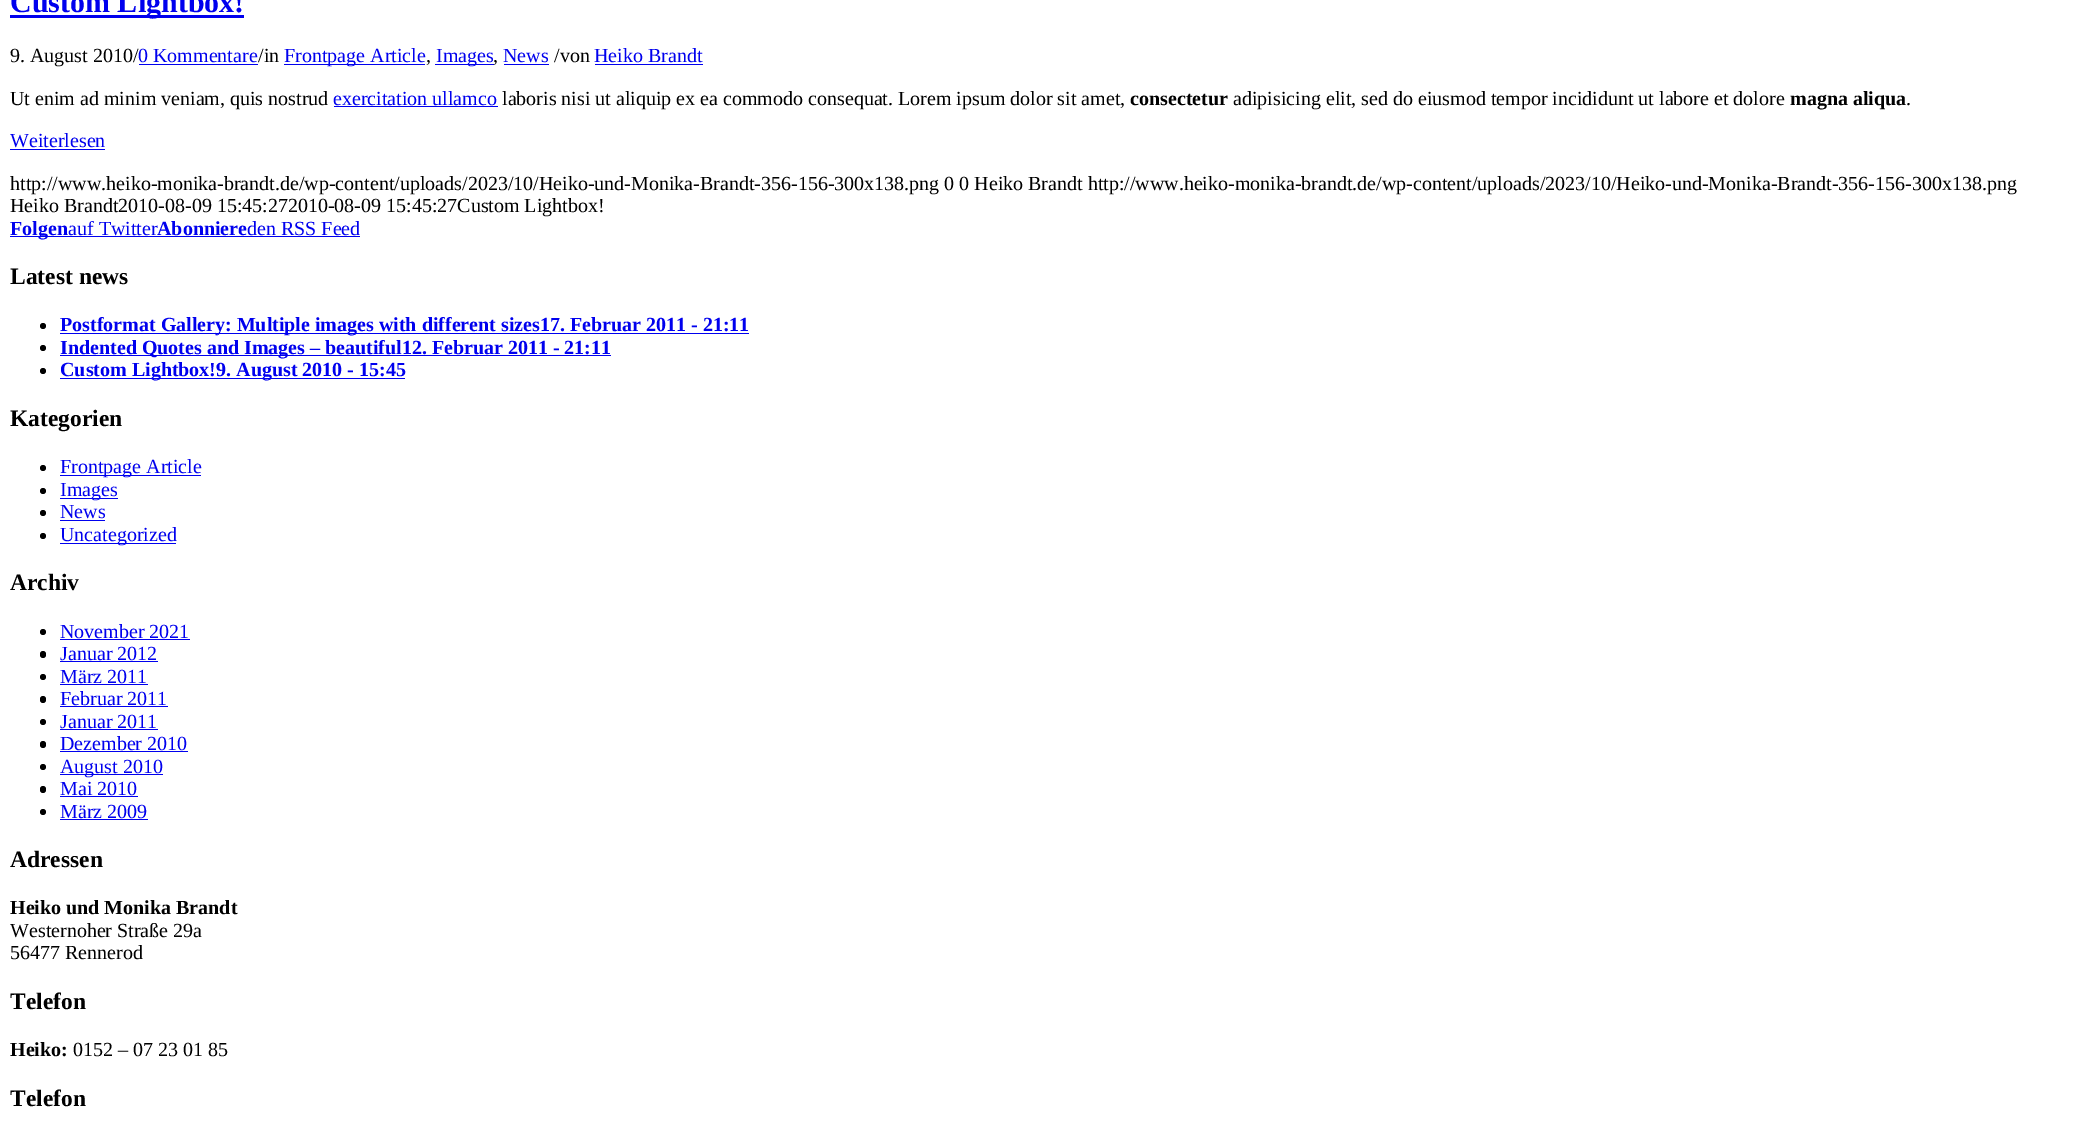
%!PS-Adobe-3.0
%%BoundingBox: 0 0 2077 1131
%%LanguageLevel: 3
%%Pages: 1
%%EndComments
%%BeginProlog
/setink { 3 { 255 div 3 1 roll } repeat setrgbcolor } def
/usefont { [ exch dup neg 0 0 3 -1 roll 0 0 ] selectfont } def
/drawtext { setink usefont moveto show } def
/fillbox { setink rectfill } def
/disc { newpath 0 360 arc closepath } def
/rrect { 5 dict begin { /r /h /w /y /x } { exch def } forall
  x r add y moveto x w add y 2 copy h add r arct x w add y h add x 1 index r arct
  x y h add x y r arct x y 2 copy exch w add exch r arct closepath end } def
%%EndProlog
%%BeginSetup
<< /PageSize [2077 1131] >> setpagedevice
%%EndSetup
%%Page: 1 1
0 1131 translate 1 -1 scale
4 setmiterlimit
0 0 2077 1131 255 255 255 fillbox
10 15 234 3 0 0 238 fillbox
(Custom Lightbox!) 10 12 /LiberationSerif-Bold 30 0 0 238 drawtext
(9. August 2010/) 10 62 /LiberationSerif-Regular 20 0 0 0 drawtext
139 64 119 1 0 0 238 fillbox
(0 Kommentare) 138 62 /LiberationSerif-Regular 20 0 0 238 drawtext
(/in) 258 62 /LiberationSerif-Regular 20 0 0 0 drawtext
284 64 141 1 0 0 238 fillbox
(Frontpage Article) 284 62 /LiberationSerif-Regular 20 0 0 238 drawtext
(,) 426 62 /LiberationSerif-Regular 20 0 0 0 drawtext
435 64 59 1 0 0 238 fillbox
(Images) 436 62 /LiberationSerif-Regular 20 0 0 238 drawtext
(,) 493 62 /LiberationSerif-Regular 20 0 0 0 drawtext
504 64 45 1 0 0 238 fillbox
(News) 503 62 /LiberationSerif-Regular 20 0 0 238 drawtext
(/von) 554 62 /LiberationSerif-Regular 20 0 0 0 drawtext
(Heiko Brandt) 594 62 /LiberationSerif-Regular 20 0 0 238 drawtext
595 64 108 1 0 0 238 fillbox
(Ut enim ad minim veniam, quis nostrud) 10 105 /LiberationSerif-Regular 20 0 0 0 drawtext
(exercitation ullamco) 333 105 /LiberationSerif-Regular 20 0 0 238 drawtext
334 106 164 1 0 0 238 fillbox
(laboris nisi ut aliquip ex ea commodo consequat. Lorem ipsum dolor sit amet,) 502 105 /LiberationSerif-Regular 20 0 0 0 drawtext
(consectetur) 1130 105 /LiberationSerif-Bold 20 0 0 0 drawtext
(adipisicing elit, sed do eiusmod tempor incididunt ut labore et dolore) 1233 105 /LiberationSerif-Regular 20 0 0 0 drawtext
(magna aliqua) 1790 105 /LiberationSerif-Bold 20 0 0 0 drawtext
(.) 1906 105 /LiberationSerif-Regular 20 0 0 0 drawtext
(Weiterlesen) 10 147 /LiberationSerif-Regular 20 0 0 238 drawtext
10 149 95 1 0 0 238 fillbox
(http://www.heiko-monika-brandt.de/wp-content/uploads/2023/10/Heiko-und-Monika-Brandt-356-156-300x138.png 0 0 Heiko Brandt http://www.heiko-monika-brandt.de/wp-content/uploads/2023/10/Heiko-und-Monika-Brandt-356-156-300x138.png) 10 190 /LiberationSerif-Regular 20 0 0 0 drawtext
(Heiko Brandt2010-08-09 15:45:272010-08-09 15:45:27Custom Lightbox!) 10 212 /LiberationSerif-Regular 20 0 0 0 drawtext
10 236 350 1 0 0 238 fillbox
(Folgen) 10 235 /LiberationSerif-Bold 20 0 0 238 drawtext
(auf Twitter) 68 235 /LiberationSerif-Regular 20 0 0 238 drawtext
(Abonniere) 157 235 /LiberationSerif-Bold 20 0 0 238 drawtext
(den RSS Feed) 247 235 /LiberationSerif-Regular 20 0 0 238 drawtext
(Latest news) 10 284 /LiberationSerif-Bold 23.5 0 0 0 drawtext
43 326 3 disc fill
60 333 689 1 0 0 238 fillbox
(Postformat Gallery: Multiple images with different sizes17. Februar 2011 - 21:11) 60 331 /LiberationSerif-Bold 20 0 0 238 drawtext
0 0 0 setink
43 348 3 disc fill
60 355 341 1 0 0 238 fillbox
(Indented Quotes and Images – beautiful12. Februar 2011 - 21:11) 60 354 /LiberationSerif-Bold 20 0 0 238 drawtext
401 355 210 1 0 0 238 fillbox
0 0 0 setink
43 371 3 disc fill
60 378 345 1 0 0 238 fillbox
(Custom Lightbox!9. August 2010 - 15:45) 60 376 /LiberationSerif-Bold 20 0 0 238 drawtext
(Kategorien) 10 426 /LiberationSerif-Bold 23.5 0 0 0 drawtext
43 468 3 disc fill
60 475 141 1 0 0 238 fillbox
(Frontpage Article) 60 473 /LiberationSerif-Regular 20 0 0 238 drawtext
0 0 0 setink
43 491 3 disc fill
60 498 58 1 0 0 238 fillbox
(Images) 60 496 /LiberationSerif-Regular 20 0 0 238 drawtext
0 0 0 setink
43 513 3 disc fill
(News) 60 518 /LiberationSerif-Regular 20 0 0 238 drawtext
60 520 45 1 0 0 238 fillbox
0 0 0 setink
43 536 3 disc fill
60 543 116 1 0 0 238 fillbox
(Uncategorized) 60 541 /LiberationSerif-Regular 20 0 0 238 drawtext
(Archiv) 10 590 /LiberationSerif-Bold 23.5 0 0 0 drawtext
43 632 3 disc fill
(November 2021) 60 638 /LiberationSerif-Regular 20 0 0 238 drawtext
60 639 130 1 0 0 238 fillbox
0 0 0 setink
40 651 6 7 3 rrect fill
(Januar 2012) 60 660 /LiberationSerif-Regular 20 0 0 238 drawtext
60 661 98 1 0 0 238 fillbox
0 0 0 setink
43 677 3 disc fill
(März 2011) 60 683 /LiberationSerif-Regular 20 0 0 238 drawtext
60 684 88 1 0 0 238 fillbox
0 0 0 setink
40 696 6 7 3 rrect fill
(Februar 2011) 60 705 /LiberationSerif-Regular 20 0 0 238 drawtext
60 706 108 1 0 0 238 fillbox
0 0 0 setink
43 722 3 disc fill
(Januar 2011) 60 728 /LiberationSerif-Regular 20 0 0 238 drawtext
60 729 98 1 0 0 238 fillbox
0 0 0 setink
40 741 6 7 3 rrect fill
(Dezember 2010) 60 750 /LiberationSerif-Regular 20 0 0 238 drawtext
60 751 128 1 0 0 238 fillbox
0 0 0 setink
43 767 3 disc fill
60 774 103 1 0 0 238 fillbox
(August 2010) 60 773 /LiberationSerif-Regular 20 0 0 238 drawtext
0 0 0 setink
40 786 6 7 3 rrect fill
(Mai 2010) 60 795 /LiberationSerif-Regular 20 0 0 238 drawtext
60 796 78 1 0 0 238 fillbox
0 0 0 setink
43 812 3 disc fill
(März 2009) 60 818 /LiberationSerif-Regular 20 0 0 238 drawtext
60 819 88 1 0 0 238 fillbox
(Adressen) 10 867 /LiberationSerif-Bold 23.5 0 0 0 drawtext
(Heiko und Monika Brandt) 10 914 /LiberationSerif-Bold 20 0 0 0 drawtext
(Westernoher Straße 29a) 10 937 /LiberationSerif-Regular 20 0 0 0 drawtext
(56477 Rennerod) 10 959 /LiberationSerif-Regular 20 0 0 0 drawtext
(Telefon) 10 1009 /LiberationSerif-Bold 23.5 0 0 0 drawtext
(Heiko:) 10 1056 /LiberationSerif-Bold 20 0 0 0 drawtext
(0152 – 07 23 01 85) 73 1056 /LiberationSerif-Regular 20 0 0 0 drawtext
(Telefon) 10 1106 /LiberationSerif-Bold 23.5 0 0 0 drawtext
showpage
%%EOF
